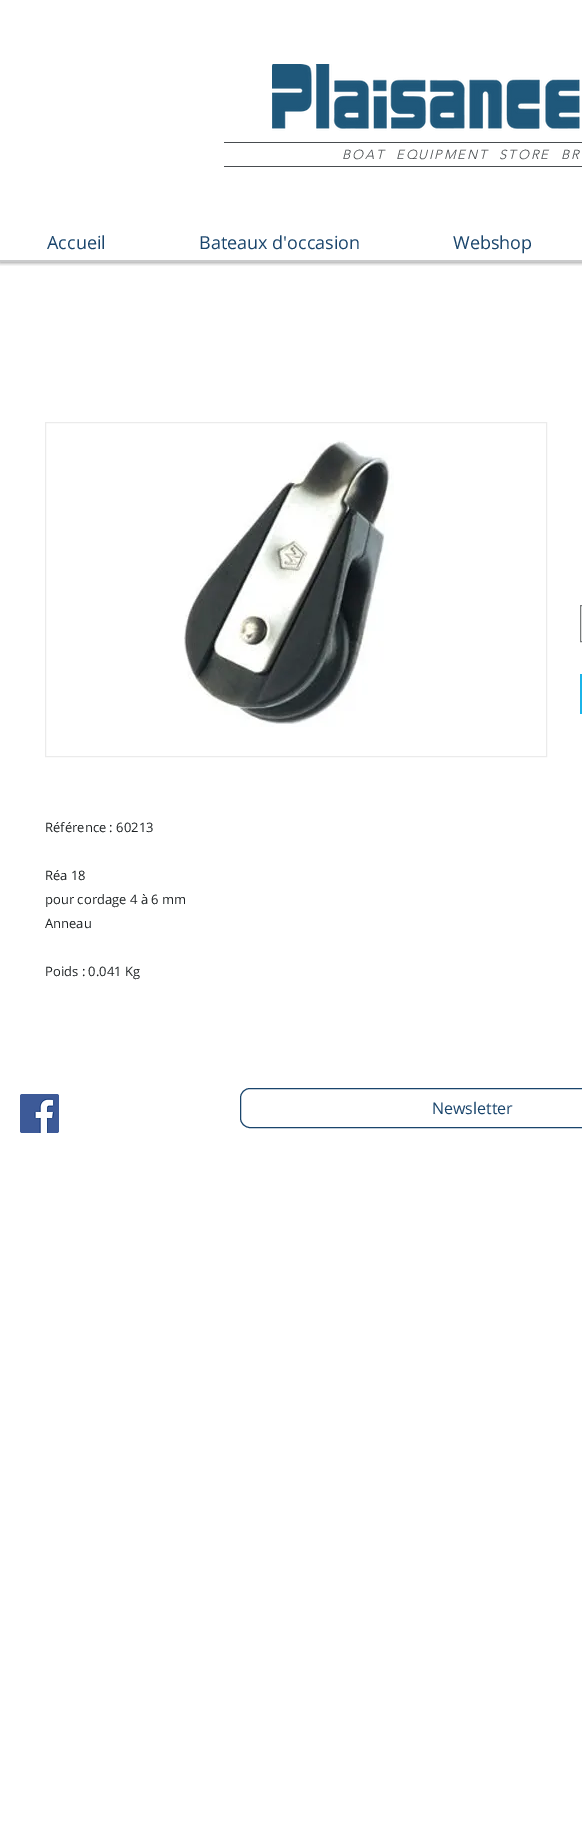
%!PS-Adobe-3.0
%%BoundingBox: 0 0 582 1832
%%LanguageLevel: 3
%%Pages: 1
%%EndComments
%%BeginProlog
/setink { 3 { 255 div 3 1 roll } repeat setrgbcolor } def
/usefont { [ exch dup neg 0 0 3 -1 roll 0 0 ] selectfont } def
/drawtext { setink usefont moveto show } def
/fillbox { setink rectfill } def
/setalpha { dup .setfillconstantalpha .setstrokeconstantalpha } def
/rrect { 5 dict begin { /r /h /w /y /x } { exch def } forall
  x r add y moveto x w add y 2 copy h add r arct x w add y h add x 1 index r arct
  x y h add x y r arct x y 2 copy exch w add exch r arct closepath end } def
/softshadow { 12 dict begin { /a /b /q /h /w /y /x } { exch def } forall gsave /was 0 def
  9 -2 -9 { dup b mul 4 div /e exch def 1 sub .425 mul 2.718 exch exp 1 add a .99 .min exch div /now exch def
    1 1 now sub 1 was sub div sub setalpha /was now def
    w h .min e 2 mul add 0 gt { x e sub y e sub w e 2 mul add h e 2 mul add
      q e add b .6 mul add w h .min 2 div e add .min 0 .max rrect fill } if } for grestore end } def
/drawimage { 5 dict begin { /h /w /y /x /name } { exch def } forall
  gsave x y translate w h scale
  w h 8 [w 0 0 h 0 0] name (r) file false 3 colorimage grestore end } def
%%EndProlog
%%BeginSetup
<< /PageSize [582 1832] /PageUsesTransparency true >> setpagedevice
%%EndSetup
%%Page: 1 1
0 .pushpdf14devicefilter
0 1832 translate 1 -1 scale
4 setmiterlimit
0 0 582 1832 255 255 255 fillbox
gsave
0 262 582 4 rectclip
0 0 0 setink
0 1 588 262 0 2 0.38 softshadow
grestore
0 260 582 2 202 203 204 fillbox
(assets/img1.rgb) 272 64 308 67 drawimage
224 142 358 1 72 76 79 fillbox
/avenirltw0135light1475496-LightItalic 13 usefont
342 159 moveto 1.95 0 (BOAT  EQUIPMENT  STORE  BR) ashow
224 166 358 1 72 76 79 fillbox
(Accueil) 47 249 /OpenSans-Regular 18 26 69 108 drawtext
(Bateaux d'occasion) 199 249 /OpenSans-Regular 18 26 69 108 drawtext
(Webshop) 453 249 /OpenSans-Regular 18 26 69 108 drawtext
119 122 123 setink
580.5 605.5 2 36 rectstroke
580 674 2 40 27 180 232 fillbox
235 235 235 setink
45.5 422.5 501 334 rectstroke
(assets/img2.rgb) 184 440 210 287 drawimage
(Référence : 60213) 45 832 /OpenSans-Regular 13 29 33 35 drawtext
(Réa 18) 45 880 /OpenSans-Regular 13 29 33 35 drawtext
(pour cordage 4 à 6 mm) 45 904 /OpenSans-Regular 13 29 33 35 drawtext
(Anneau) 45 928 /OpenSans-Regular 13 29 33 35 drawtext
(Poids : 0.041 Kg) 45 976 /OpenSans-Regular 13 29 33 35 drawtext
(assets/img3.rgb) 20 1094 39 39 drawimage
26 69 108 setink
240.5 1088.5 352 39 9.5 rrect stroke
(Newsletter) 432 1114 /OpenSans-Regular 16 26 69 108 drawtext
.poppdf14devicefilter showpage
%%EOF
